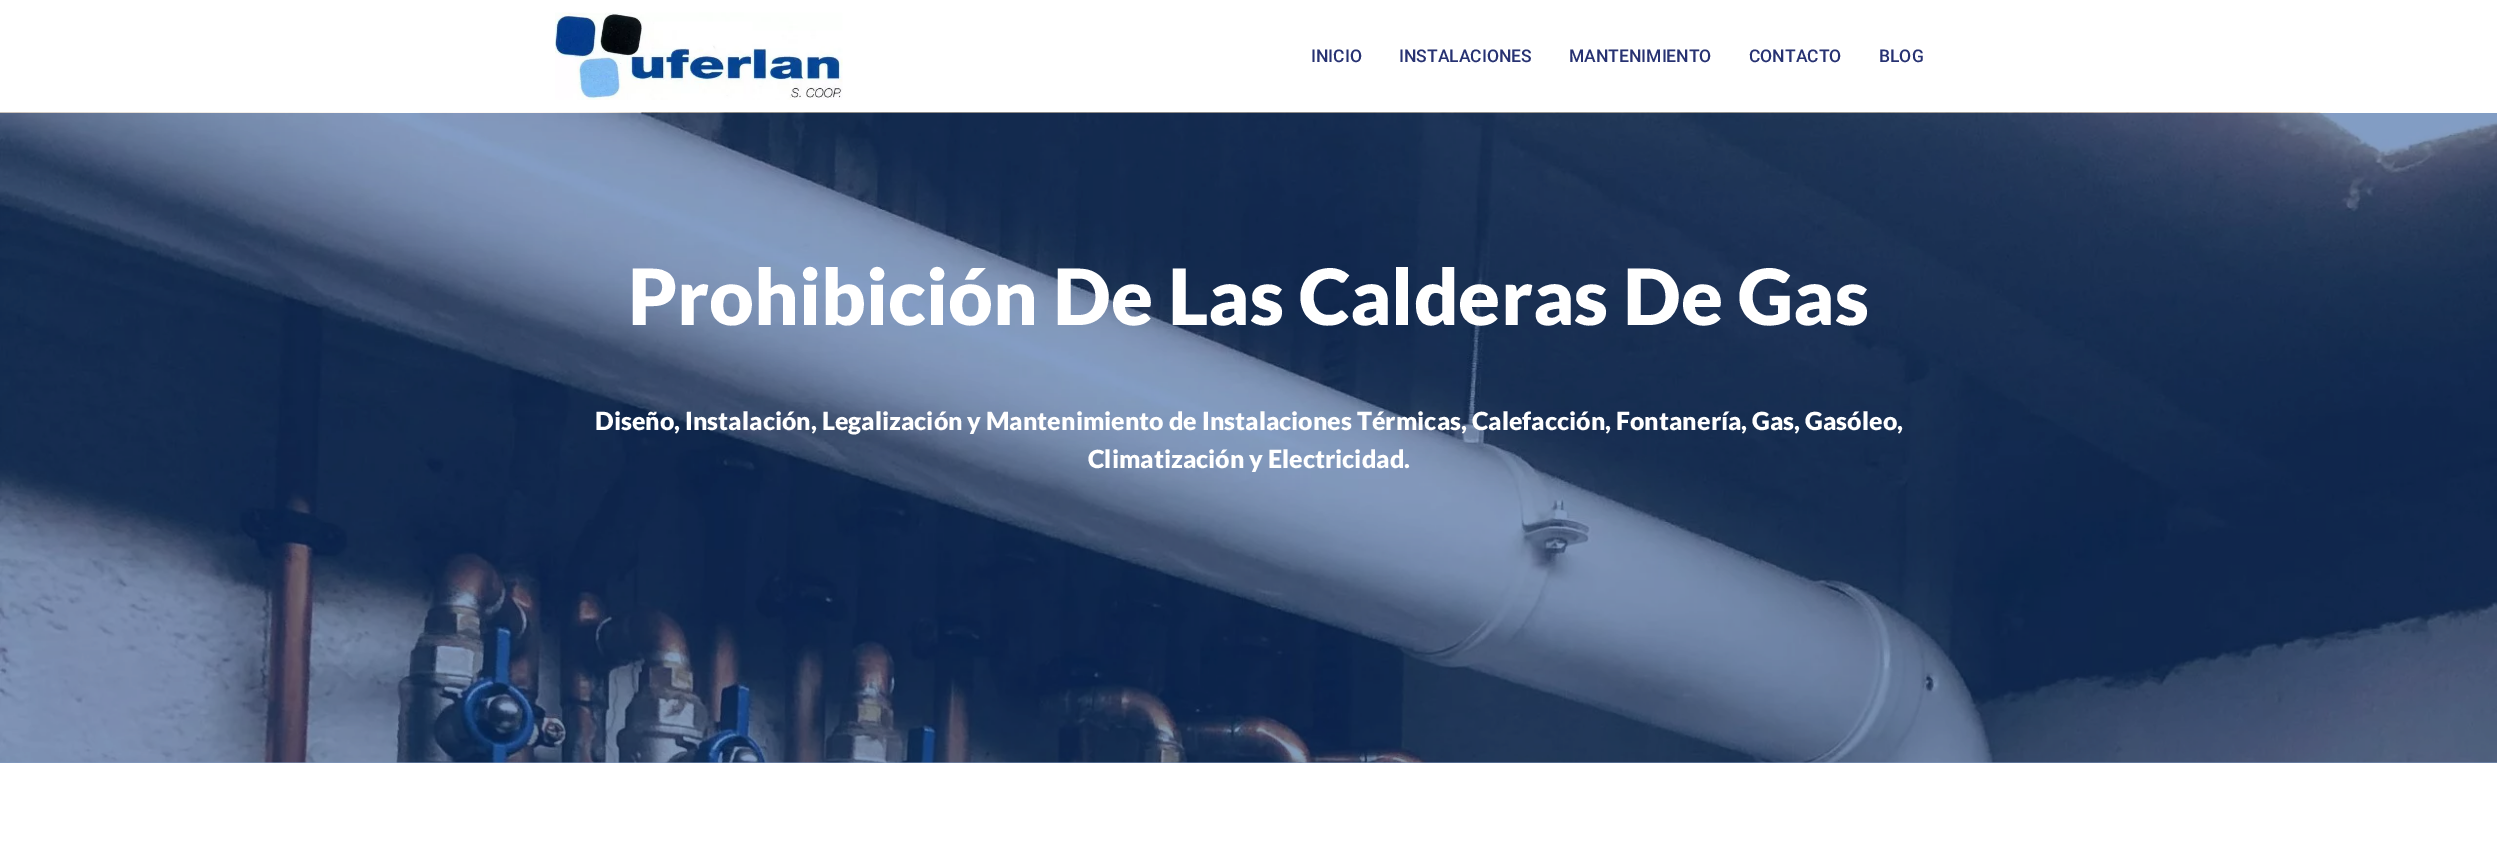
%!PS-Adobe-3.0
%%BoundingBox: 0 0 2497 846
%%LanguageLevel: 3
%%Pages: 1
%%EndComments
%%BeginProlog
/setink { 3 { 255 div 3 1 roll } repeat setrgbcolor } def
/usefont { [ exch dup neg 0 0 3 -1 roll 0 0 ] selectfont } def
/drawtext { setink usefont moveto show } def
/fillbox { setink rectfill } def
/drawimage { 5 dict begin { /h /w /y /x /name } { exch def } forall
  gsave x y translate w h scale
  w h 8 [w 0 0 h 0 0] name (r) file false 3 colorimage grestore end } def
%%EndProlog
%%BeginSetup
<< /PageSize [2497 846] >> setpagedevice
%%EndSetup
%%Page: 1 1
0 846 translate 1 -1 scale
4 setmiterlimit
0 0 2497 846 255 255 255 fillbox
0 762 2497 1 132 157 197 fillbox
(assets/img1.rgb) 555 12 288 88 drawimage
(INICIO) 1311 62 /Roboto-Medium 17.5 39 50 114 drawtext
(INSTALACIONES) 1399 62 /Roboto-Medium 17.5 39 50 114 drawtext
(MANTENIMIENTO) 1569 62 /Roboto-Medium 17.5 39 50 114 drawtext
(CONTACTO) 1749 62 /Roboto-Medium 17.5 39 50 114 drawtext
(BLOG) 1879 62 /Roboto-Medium 17.5 39 50 114 drawtext
(assets/img2.rgb) 0 112 2497 651 drawimage
(Prohibición De Las Calderas De Gas) 628 325 /Lato-Black 77.5 255 255 255 drawtext
(Diseño, Instalación, Legalización y Mantenimiento de Instalaciones Térmicas, Calefacción, Fontanería, Gas, Gasóleo,) 595 430 /Lato-Black 25 255 255 255 drawtext
(Climatización y Electricidad.) 1088 468 /Lato-Black 25 255 255 255 drawtext
showpage
%%EOF
